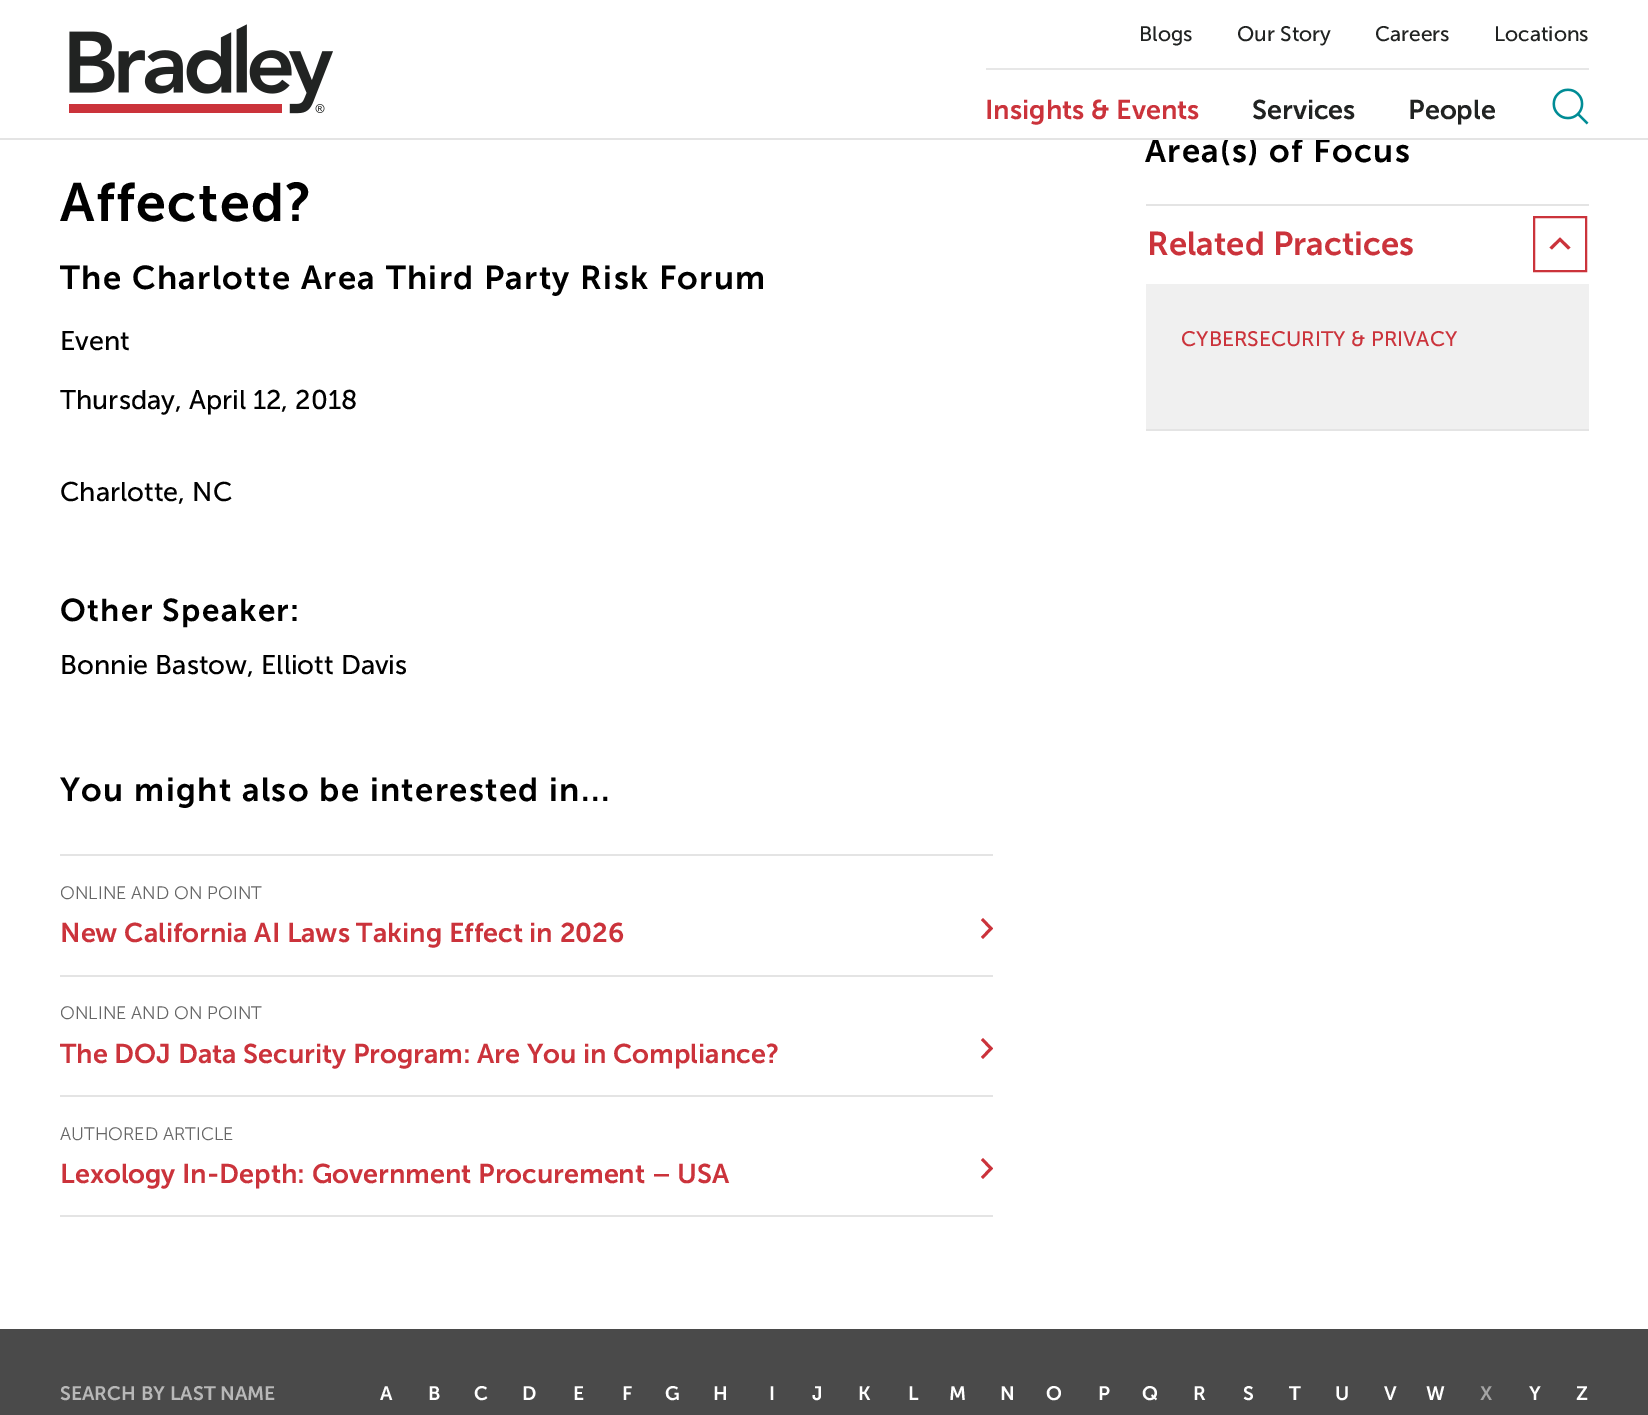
%!PS-Adobe-3.0
%%BoundingBox: 0 0 1648 1415
%%LanguageLevel: 3
%%Pages: 1
%%EndComments
%%BeginProlog
/setink { 3 { 255 div 3 1 roll } repeat setrgbcolor } def
/usefont { [ exch dup neg 0 0 3 -1 roll 0 0 ] selectfont } def
/drawtext { setink usefont moveto show } def
/fillbox { setink rectfill } def
/drawimage { 5 dict begin { /h /w /y /x /name } { exch def } forall
  gsave x y translate w h scale
  w h 8 [w 0 0 h 0 0] name (r) file false 3 colorimage grestore end } def
%%EndProlog
%%BeginSetup
<< /PageSize [1648 1415] >> setpagedevice
%%EndSetup
%%Page: 1 1
0 1415 translate 1 -1 scale
4 setmiterlimit
0 0 1648 1415 255 255 255 fillbox
/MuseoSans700-SemiBold 33 usefont
0 0 0 setink
1145 162 moveto 1.35 0 (Area\(s\) of Focus) ashow
1226 137 27 1 255 255 255 fillbox
0 138 1648 2 228 228 228 fillbox
(assets/img1.rgb) 69 24 264 90 drawimage
(Blogs) 1139 41 /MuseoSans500-Regular 21 33 35 34 drawtext
(Our Story) 1237 41 /MuseoSans500-Regular 21 33 35 34 drawtext
(Careers) 1375 41 /MuseoSans500-Regular 21 33 35 34 drawtext
(Locations) 1494 41 /MuseoSans500-Regular 21 33 35 34 drawtext
986 68 603 2 231 231 231 fillbox
(Insights & Events) 985 119 /MuseoSans700-SemiBold 27 203 51 59 drawtext
(Services) 1252 119 /MuseoSans700-SemiBold 27 33 35 34 drawtext
(People) 1408 119 /MuseoSans700-SemiBold 27 33 35 34 drawtext
(assets/img2.rgb) 1552 88 37 37 drawimage
/MuseoSans700-SemiBold 54 usefont
0 0 0 setink
60 221 moveto 1.35 0 (Affected?) ashow
/MuseoSans700-SemiBold 33 usefont
60 289 moveto 1.35 0 (The Charlotte Area Third Party Risk Forum) ashow
(Event) 60 350 /MuseoSans500-Regular 27 0 0 0 drawtext
(Thursday, April 12, 2018) 60 409 /MuseoSans500-Regular 27 0 0 0 drawtext
(Charlotte, NC) 60 501 /MuseoSans500-Regular 27 0 0 0 drawtext
/MuseoSans700-SemiBold 31.5 usefont
60 621 moveto 1.35 0 (Other Speaker:) ashow
(Bonnie Bastow, Elliott Davis) 60 674 /MuseoSans500-Regular 27 0 0 0 drawtext
/MuseoSans700-SemiBold 33 usefont
60 801 moveto 1.35 0 (You might also be interested in...) ashow
60 854 933 2 228 228 228 fillbox
60 975 933 2 228 228 228 fillbox
(ONLINE AND ON POINT) 60 899 /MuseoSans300-Light 18 102 102 102 drawtext
(New California AI Laws Taking Effect in 2026) 60 942 /MuseoSans700-SemiBold 27 203 51 59 drawtext
993 928.5 moveto 983 939 lineto 981 937 lineto 989 928.5 lineto 981 920 lineto 983 918 lineto closepath fill
60 1095 933 2 228 228 228 fillbox
(ONLINE AND ON POINT) 60 1019 /MuseoSans300-Light 18 102 102 102 drawtext
(The DOJ Data Security Program: Are You in Compliance?) 60 1063 /MuseoSans700-SemiBold 27 203 51 59 drawtext
993 1048.5 moveto 983 1059 lineto 981 1057 lineto 989 1048.5 lineto 981 1040 lineto 983 1038 lineto closepath fill
60 1215 933 2 228 228 228 fillbox
(AUTHORED ARTICLE) 60 1140 /MuseoSans300-Light 18 102 102 102 drawtext
(Lexology In-Depth: Government Procurement – USA) 60 1183 /MuseoSans700-SemiBold 27 203 51 59 drawtext
993 1168.5 moveto 983 1179 lineto 981 1177 lineto 989 1168.5 lineto 981 1160 lineto 983 1158 lineto closepath fill
1146 204 443 2 228 228 228 fillbox
1146 429 443 2 228 228 228 fillbox
(Related Practices) 1147 255 /MuseoSans700-SemiBold 33 203 51 59 drawtext
2 setlinewidth
1534 217 52 54 rectstroke
1570.5 247.5 moveto 1560 237.5 lineto 1549.5 247.5 lineto 1552 249.5 lineto 1560 241.5 lineto 1568 249.5 lineto closepath fill
1146 284 443 145 240 240 240 fillbox
(CYBERSECURITY & PRIVACY) 1181 346 /MuseoSans500-Regular 21 203 51 59 drawtext
0 1329 1648 86 74 74 74 fillbox
(SEARCH BY LAST NAME) 60 1400 /MuseoSans700-SemiBold 19.5 184 184 184 drawtext
(A) 380 1400 /MuseoSans700-SemiBold 19.5 255 255 255 drawtext
(B) 428 1400 /MuseoSans700-SemiBold 19.5 255 255 255 drawtext
(C) 474 1400 /MuseoSans700-SemiBold 19.5 255 255 255 drawtext
(D) 522 1400 /MuseoSans700-SemiBold 19.5 255 255 255 drawtext
(E) 573 1400 /MuseoSans700-SemiBold 19.5 255 255 255 drawtext
(F) 622 1400 /MuseoSans700-SemiBold 19.5 255 255 255 drawtext
(G) 665 1400 /MuseoSans700-SemiBold 19.5 255 255 255 drawtext
(H) 713 1400 /MuseoSans700-SemiBold 19.5 255 255 255 drawtext
(I) 769 1400 /MuseoSans700-SemiBold 19.5 255 255 255 drawtext
(J) 812 1400 /MuseoSans700-SemiBold 19.5 255 255 255 drawtext
(K) 858 1400 /MuseoSans700-SemiBold 19.5 255 255 255 drawtext
(L) 908 1400 /MuseoSans700-SemiBold 19.5 255 255 255 drawtext
(M) 949 1400 /MuseoSans700-SemiBold 19.5 255 255 255 drawtext
(N) 1000 1400 /MuseoSans700-SemiBold 19.5 255 255 255 drawtext
(O) 1046 1400 /MuseoSans700-SemiBold 19.5 255 255 255 drawtext
(P) 1098 1400 /MuseoSans700-SemiBold 19.5 255 255 255 drawtext
(Q) 1142 1400 /MuseoSans700-SemiBold 19.5 255 255 255 drawtext
(R) 1193 1400 /MuseoSans700-SemiBold 19.5 255 255 255 drawtext
(S) 1243 1400 /MuseoSans700-SemiBold 19.5 255 255 255 drawtext
(T) 1289 1400 /MuseoSans700-SemiBold 19.5 255 255 255 drawtext
(U) 1335 1400 /MuseoSans700-SemiBold 19.5 255 255 255 drawtext
(V) 1384 1400 /MuseoSans700-SemiBold 19.5 255 255 255 drawtext
(W) 1426 1400 /MuseoSans700-SemiBold 19.5 255 255 255 drawtext
(X) 1480 1400 /MuseoSans700-SemiBold 19.5 165 165 165 drawtext
(Y) 1529 1400 /MuseoSans700-SemiBold 19.5 255 255 255 drawtext
(Z) 1576 1400 /MuseoSans700-SemiBold 19.5 255 255 255 drawtext
showpage
%%EOF
